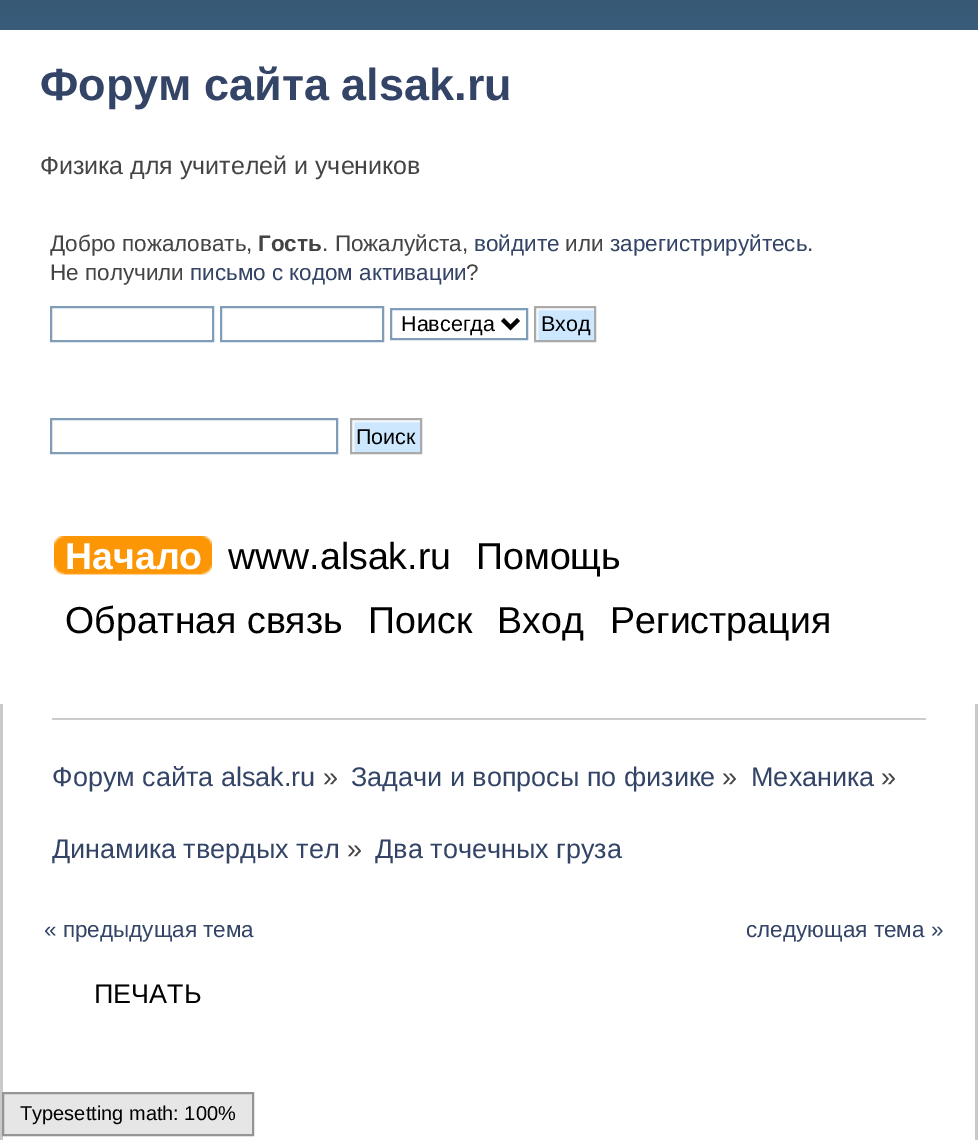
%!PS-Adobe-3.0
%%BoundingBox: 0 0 978 1140
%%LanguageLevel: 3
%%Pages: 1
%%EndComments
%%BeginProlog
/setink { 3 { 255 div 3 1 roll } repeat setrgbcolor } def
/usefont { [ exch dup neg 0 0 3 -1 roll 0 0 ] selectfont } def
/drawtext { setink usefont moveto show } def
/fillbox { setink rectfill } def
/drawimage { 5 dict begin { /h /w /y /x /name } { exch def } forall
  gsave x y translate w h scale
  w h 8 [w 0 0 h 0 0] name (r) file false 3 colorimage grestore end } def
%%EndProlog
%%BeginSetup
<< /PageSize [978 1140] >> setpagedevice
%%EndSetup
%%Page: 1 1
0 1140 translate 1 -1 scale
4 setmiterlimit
0 0 978 1140 255 255 255 fillbox
(assets/img1.rgb) 0 0 978 30 drawimage
(Форум сайта alsak.ru) 40 100 /LiberationSans-Bold 45 51 68 102 drawtext
(Физика для учителей и учеников) 40 174 /LiberationSans-Regular 25 68 68 68 drawtext
(Добро пожаловать,) 50 251 /LiberationSans-Regular 22.5 68 68 68 drawtext
(Гость) 258 251 /LiberationSans-Bold 22.5 68 68 68 drawtext
(. Пожалуйста,) 322 251 /LiberationSans-Regular 22.5 68 68 68 drawtext
(войдите) 474 251 /LiberationSans-Regular 22.5 51 68 102 drawtext
(или) 565 251 /LiberationSans-Regular 22.5 68 68 68 drawtext
(зарегистрируйтесь) 610 251 /LiberationSans-Regular 22.5 51 68 102 drawtext
(.) 807 251 /LiberationSans-Regular 22.5 68 68 68 drawtext
(Не получили) 50 280 /LiberationSans-Regular 22.5 68 68 68 drawtext
(письмо с кодом активации) 190 280 /LiberationSans-Regular 22.5 51 68 102 drawtext
(?) 466 280 /LiberationSans-Regular 22.5 68 68 68 drawtext
127 157 185 setink
2 setlinewidth
51 307 162 34 rectstroke
221 307 162 34 rectstroke
391 309 136 30 rectstroke
0 0 0 setink
4 setlinewidth
502.5 319.5 moveto 510.5 327.5 lineto 518.5 319.5 lineto stroke
(Навсегда) 401 331 /LiberationSans-Regular 21.5 0 0 0 drawtext
(assets/img2.rgb) 536 308 58 32 drawimage
170 170 170 setink
2 setlinewidth
535 307 60 34 rectstroke
(Вход) 541 331 /LiberationSans-Regular 21.5 0 0 0 drawtext
127 157 185 setink
51 419 286 34 rectstroke
(assets/img3.rgb) 352 420 68 32 drawimage
170 170 170 setink
351 419 70 34 rectstroke
(Поиск) 356 444 /LiberationSans-Regular 21.5 0 0 0 drawtext
(assets/img4.rgb) 64 536 148 39 drawimage
(assets/img5.rgb) 54 536 148 39 drawimage
(Начало) 65 569 /LiberationSans-Bold 37.5 255 255 255 drawtext
(www.alsak.ru) 228 569 /LiberationSans-Regular 37.5 0 0 0 drawtext
(Помощь) 476 569 /LiberationSans-Regular 37.5 0 0 0 drawtext
(Обратная связь) 65 633 /LiberationSans-Regular 37.5 0 0 0 drawtext
(Поиск) 368 633 /LiberationSans-Regular 37.5 0 0 0 drawtext
(Вход) 497 633 /LiberationSans-Regular 37.5 0 0 0 drawtext
(Регистрация) 610 633 /LiberationSans-Regular 37.5 0 0 0 drawtext
0 704 3 436 201 201 201 fillbox
975 704 3 436 201 201 201 fillbox
52 718 874 2 204 204 204 fillbox
(Форум сайта alsak.ru) 52 786 /LiberationSans-Regular 27 51 68 102 drawtext
(») 323 786 /LiberationSans-Regular 27 68 68 68 drawtext
(Задачи и вопросы по физике) 351 786 /LiberationSans-Regular 27 51 68 102 drawtext
(») 722 786 /LiberationSans-Regular 27 68 68 68 drawtext
(Механика) 751 786 /LiberationSans-Regular 27 51 68 102 drawtext
(») 881 786 /LiberationSans-Regular 27 68 68 68 drawtext
(Динамика твердых тел) 52 858 /LiberationSans-Regular 27 51 68 102 drawtext
(») 347 858 /LiberationSans-Regular 27 68 68 68 drawtext
(Два точечных груза) 375 858 /LiberationSans-Regular 27 51 68 102 drawtext
(« предыдущая тема) 44 937 /LiberationSans-Regular 22.5 51 68 102 drawtext
(следующая тема ») 746 937 /LiberationSans-Regular 22.5 51 68 102 drawtext
(ПЕЧАТЬ) 94 1003 /LiberationSans-Regular 27 0 0 0 drawtext
230 230 230 setink
3 1093 moveto 253 1093 lineto 253 1135 lineto 3 1135 lineto closepath gsave fill grestore
149 149 149 setink
stroke
(Typesetting math: 100%) 20 1120 /LiberationSans-Regular 20 0 0 0 drawtext
showpage
%%EOF
